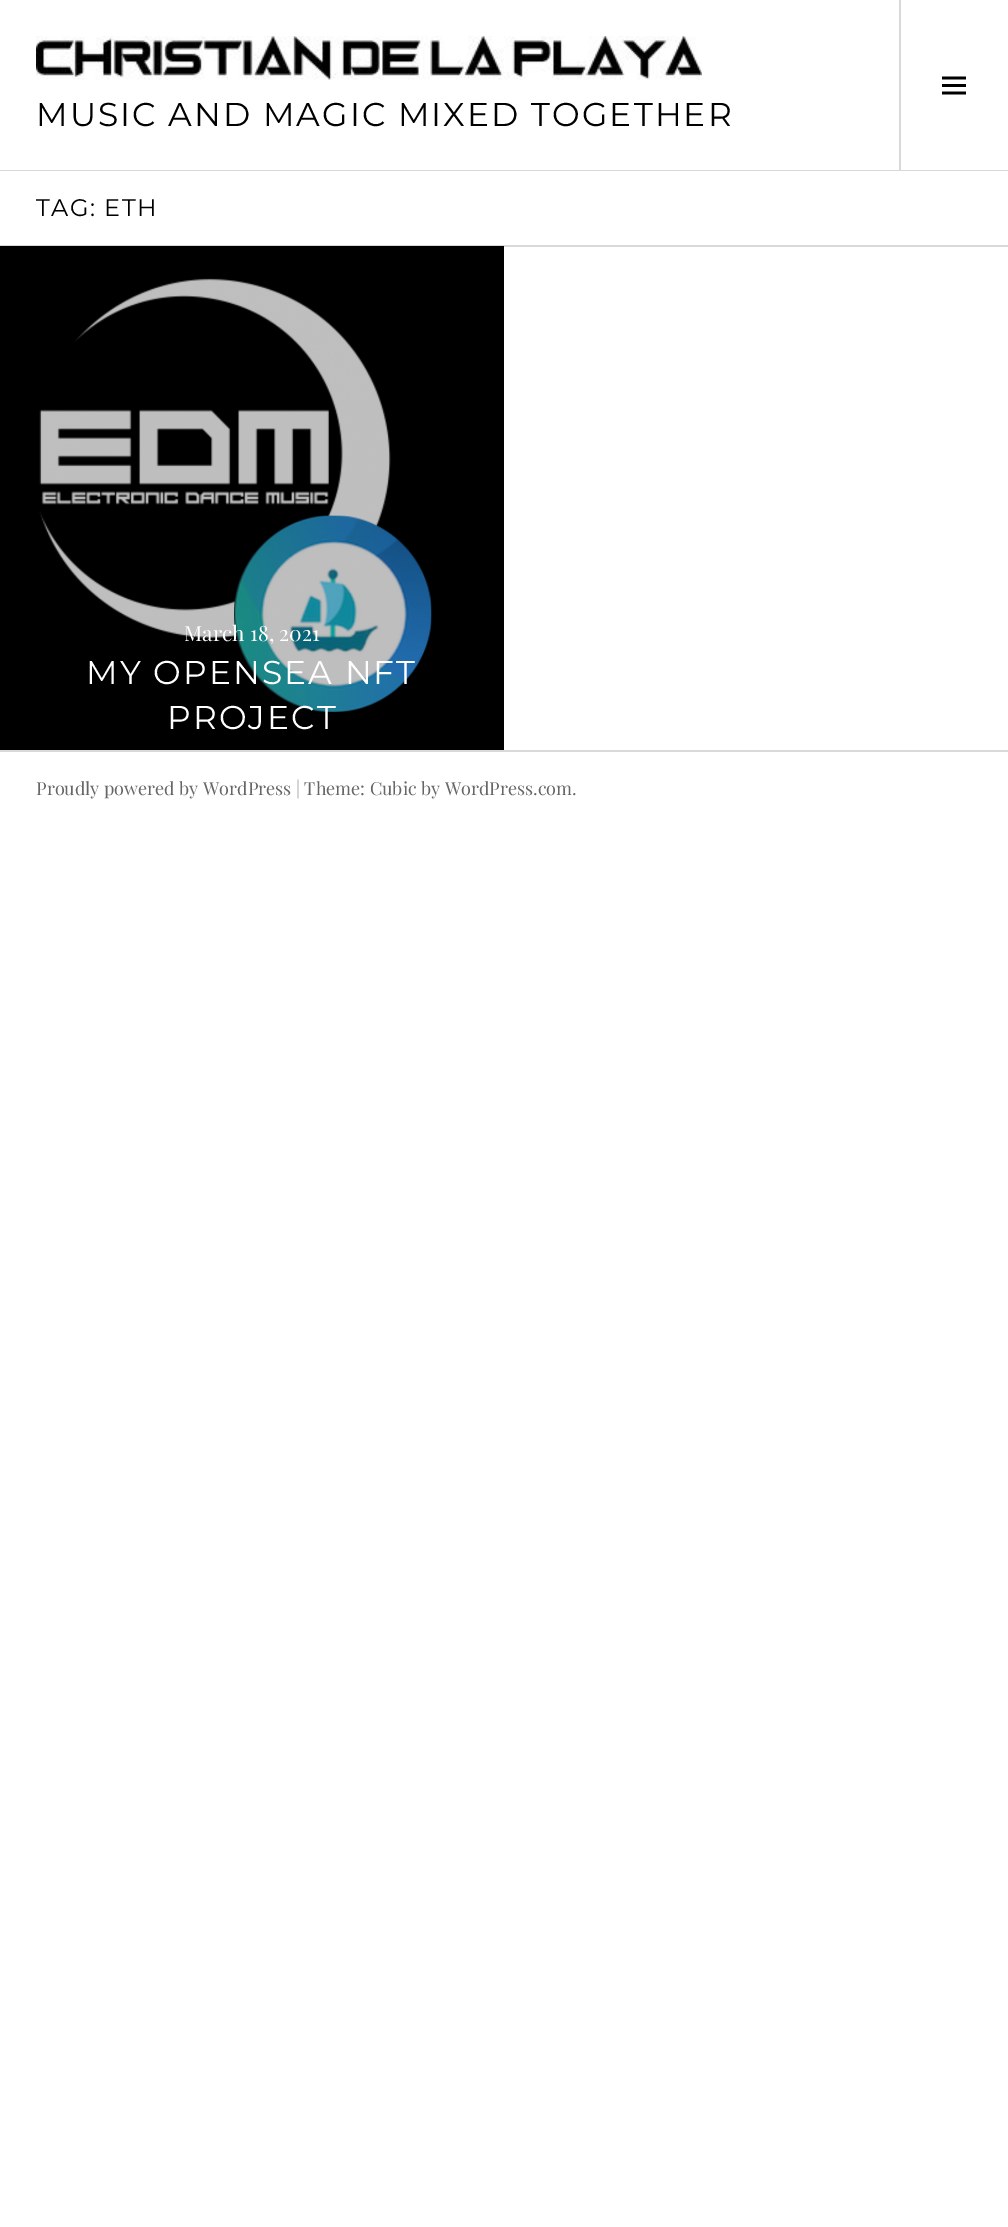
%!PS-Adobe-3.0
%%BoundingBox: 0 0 1008 2227
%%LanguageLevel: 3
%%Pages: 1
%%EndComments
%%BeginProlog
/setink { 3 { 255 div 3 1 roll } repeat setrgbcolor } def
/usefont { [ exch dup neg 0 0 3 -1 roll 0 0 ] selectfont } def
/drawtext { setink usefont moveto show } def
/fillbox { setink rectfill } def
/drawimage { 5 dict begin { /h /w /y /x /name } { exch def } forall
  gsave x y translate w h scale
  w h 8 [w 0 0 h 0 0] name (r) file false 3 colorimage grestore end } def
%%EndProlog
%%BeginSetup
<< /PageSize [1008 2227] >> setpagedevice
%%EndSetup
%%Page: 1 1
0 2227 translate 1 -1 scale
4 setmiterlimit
0 0 1008 2227 255 255 255 fillbox
0 170 1008 1 217 217 217 fillbox
(assets/img1.rgb) 36 36 666 44 drawimage
/Montserrat-Regular 33 usefont
0 0 0 setink
36 126 moveto 2.05 0 (MUSIC AND MAGIC MIXED TOGETHER) ashow
899 0 2 170 217 217 217 fillbox
(assets/img2.rgb) 942 76 24 19 drawimage
0 245 1008 2 217 217 217 fillbox
/Montserrat-Regular 24 usefont
0 0 0 setink
36 216 moveto 1.5 0 (TAG: ETH) ashow
0 246 504 504 0 0 0 fillbox
(assets/img3.rgb) 39 278 393 434 drawimage
(March 18, 2021) 184 641 /PlayfairDisplay-Regular 21 255 255 255 drawtext
/Montserrat-Regular 33 usefont
86 684 moveto 2.05 0 (MY OPENSEA NFT) ashow
167 729 moveto 2.05 0 (PROJECT) ashow
0 750 1008 2 217 217 217 fillbox
(Proudly powered by WordPress | Theme: Cubic by WordPress.com.) 36 795 /PlayfairDisplay-Regular 18 102 102 102 drawtext
showpage
%%EOF
